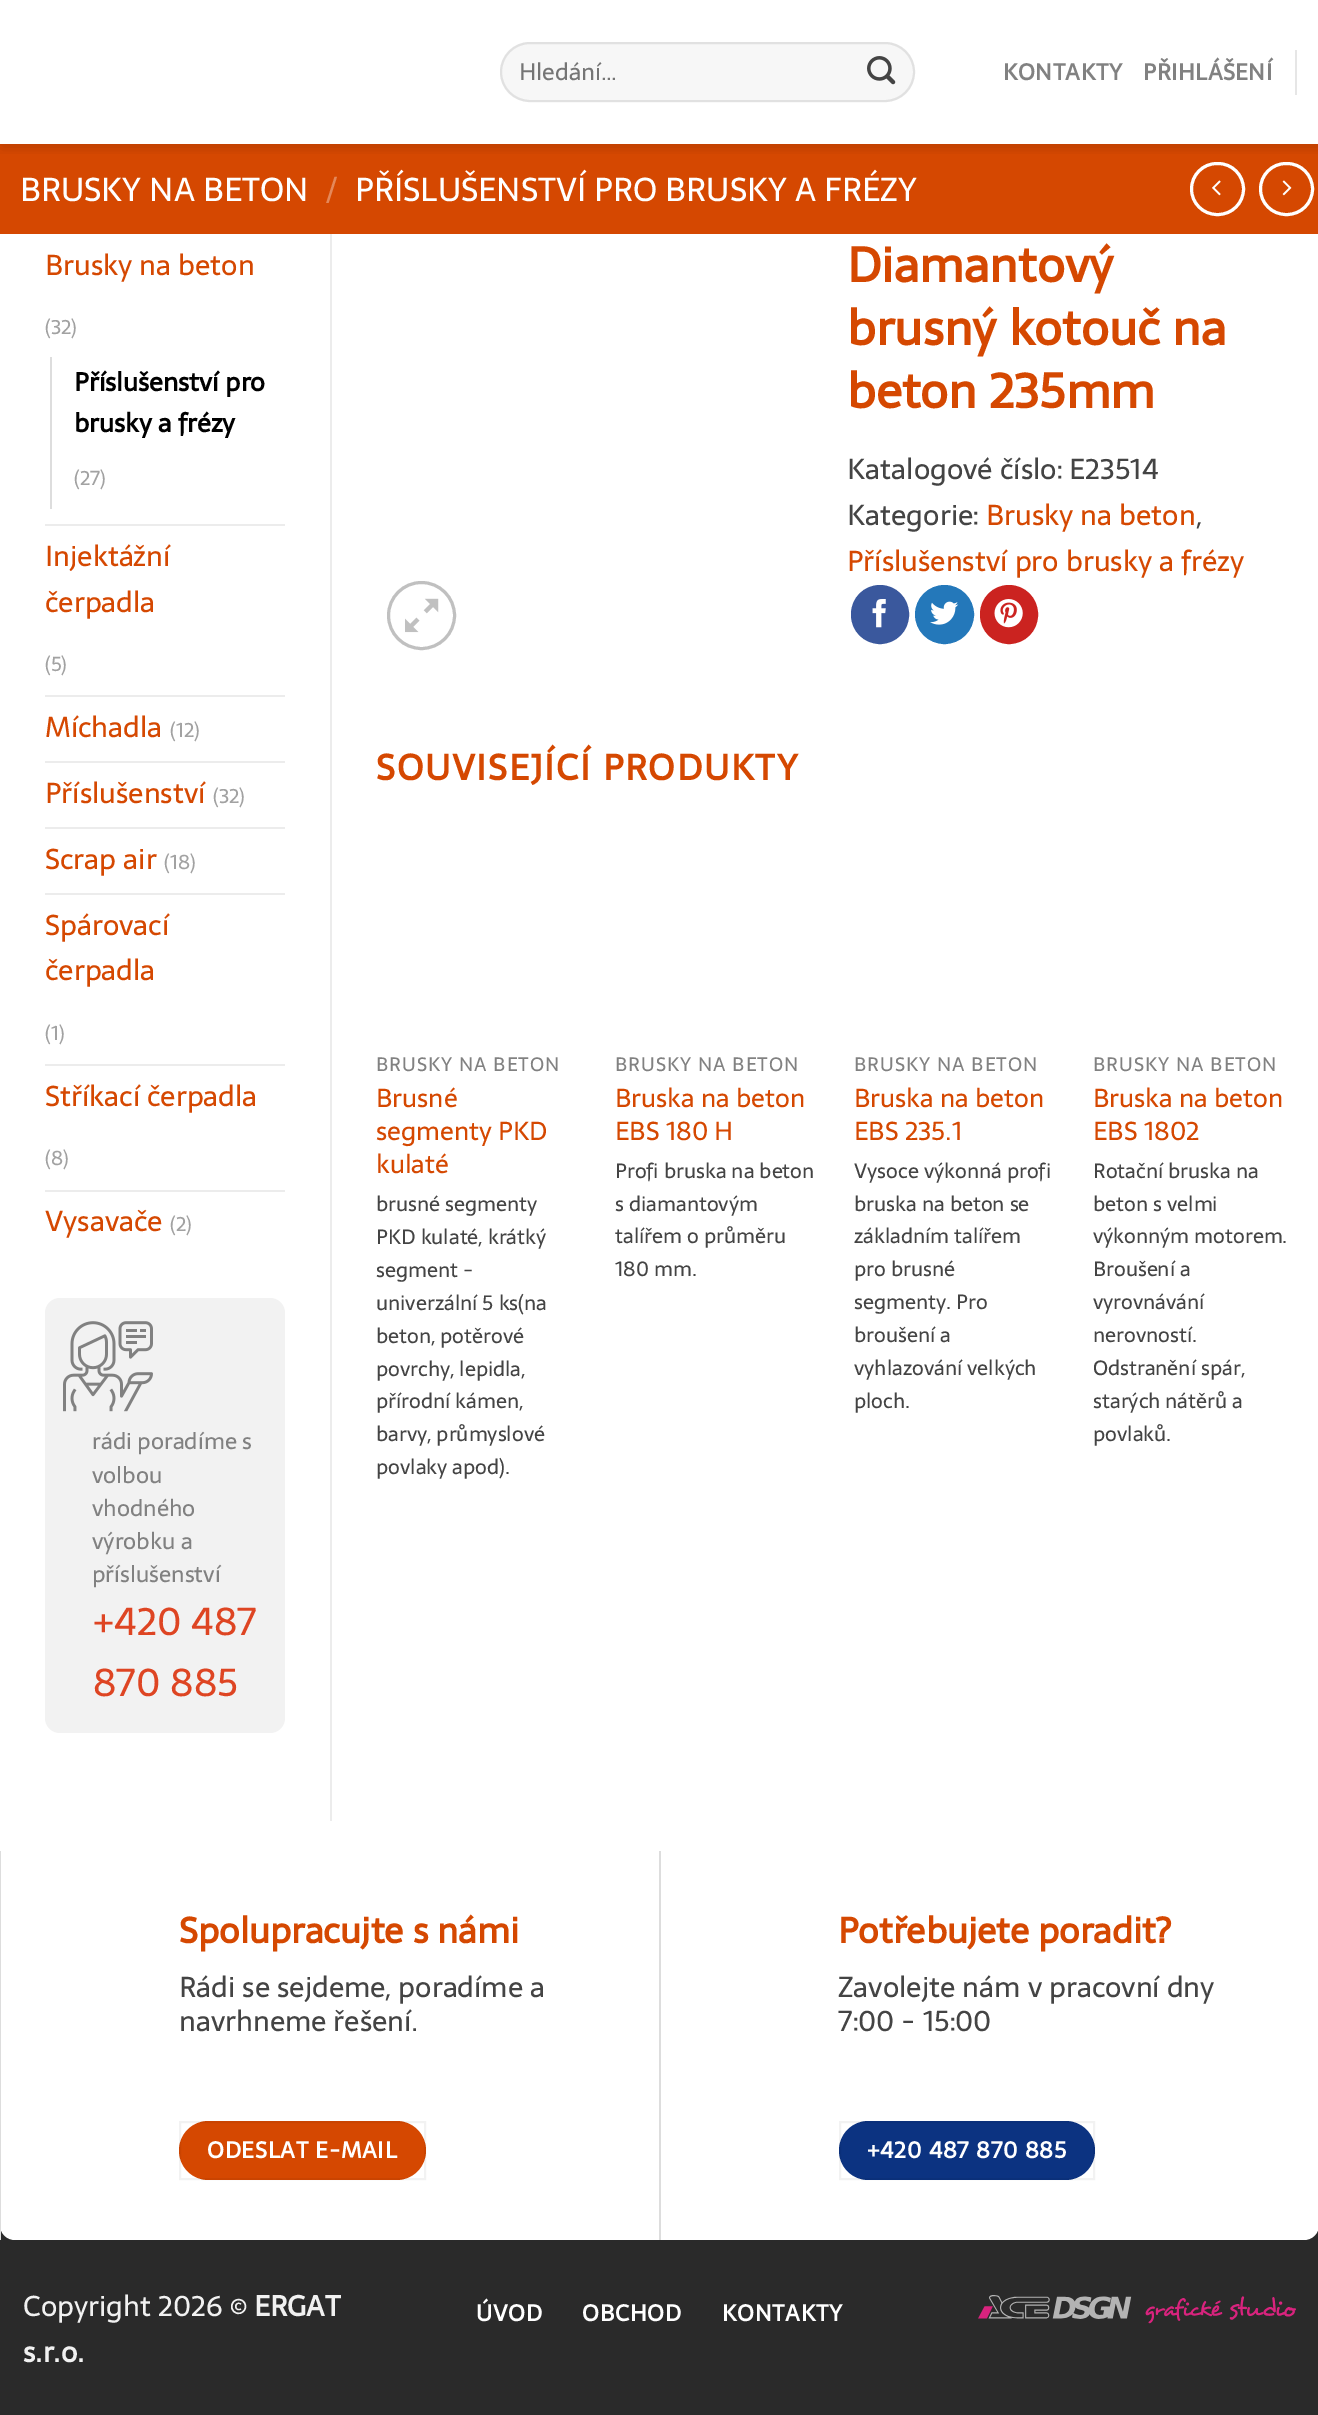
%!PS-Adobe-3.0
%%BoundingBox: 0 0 1318 2415
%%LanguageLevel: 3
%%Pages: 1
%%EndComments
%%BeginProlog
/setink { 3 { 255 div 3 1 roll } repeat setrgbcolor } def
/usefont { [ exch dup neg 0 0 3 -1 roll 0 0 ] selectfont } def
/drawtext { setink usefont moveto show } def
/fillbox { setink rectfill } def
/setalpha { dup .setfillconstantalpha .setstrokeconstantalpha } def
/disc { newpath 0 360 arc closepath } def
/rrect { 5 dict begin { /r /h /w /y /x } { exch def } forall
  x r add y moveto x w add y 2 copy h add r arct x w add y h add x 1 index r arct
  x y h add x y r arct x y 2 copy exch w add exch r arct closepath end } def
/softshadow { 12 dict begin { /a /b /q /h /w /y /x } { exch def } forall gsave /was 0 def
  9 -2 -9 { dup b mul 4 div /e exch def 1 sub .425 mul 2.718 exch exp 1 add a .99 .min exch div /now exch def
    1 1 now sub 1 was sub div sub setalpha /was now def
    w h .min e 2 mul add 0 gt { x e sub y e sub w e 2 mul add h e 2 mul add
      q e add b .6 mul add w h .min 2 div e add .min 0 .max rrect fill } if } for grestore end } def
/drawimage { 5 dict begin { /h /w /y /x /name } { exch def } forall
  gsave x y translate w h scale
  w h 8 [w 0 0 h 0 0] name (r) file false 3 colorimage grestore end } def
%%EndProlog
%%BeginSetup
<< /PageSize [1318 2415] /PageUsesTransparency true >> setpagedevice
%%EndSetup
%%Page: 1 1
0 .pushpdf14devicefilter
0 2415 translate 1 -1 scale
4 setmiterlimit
0 0 1318 2415 255 255 255 fillbox
0 144 1318 90 213 72 1 fillbox
255 255 255 setink
3 setlinewidth
1191.5 163.5 52 51 25.5 rrect stroke
1260.5 163.5 52 51 25.5 rrect stroke
gsave
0 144 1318 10 rectclip
0 0 0 setink
2 2 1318 144 0 7.5 0.15 softshadow
grestore
247 247 247 setink
500 42 415 60 30 rrect fill
0.09 setalpha
0 0 0 setink
2 setlinewidth
501 43 413 58 29 rrect stroke
1 setalpha
(Hledání…) 519 80 /Sarala-Regular 23.5 117 117 117 drawtext
(assets/img1.rgb) 867 56 29 29 drawimage
/Sarala-Bold 22.75 usefont
129 129 129 setink
1003 80 moveto 0.5 0 (KONTAKTY) ashow
1143 80 moveto 0.5 0 (PŘIHLÁŠENÍ) ashow
1295 50 2 45 230 230 230 fillbox
(BRUSKY NA BETON) 20 201 /Sarala-Regular 32.8 255 255 255 drawtext
(/) 326 201 /Sarala-Regular 32.8 228 136 90 drawtext
(PŘÍSLUŠENSTVÍ PRO BRUSKY A FRÉZY) 355 201 /Sarala-Regular 32.8 255 255 255 drawtext
(assets/img2.rgb) 1212 180 9 16 drawimage
(assets/img3.rgb) 1282 180 10 16 drawimage
(Brusky na beton) 45 275 /Sarala-Regular 28.5 213 72 1 drawtext
(\(32\)) 45 334 /Sarala-Regular 20 162 162 162 drawtext
50 357 2 152 221 221 221 fillbox
(Příslušenství pro) 74 391 /Sarala-Bold 25.75 0 0 0 drawtext
(brusky a frézy) 74 432 /Sarala-Bold 25.75 0 0 0 drawtext
(\(27\)) 74 485 /Sarala-Regular 20 162 162 162 drawtext
45 524 240 2 236 236 236 fillbox
(Injektážní) 45 566 /Sarala-Regular 28.5 213 72 1 drawtext
(čerpadla) 45 612 /Sarala-Regular 28.5 213 72 1 drawtext
(\(5\)) 45 671 /Sarala-Regular 20 162 162 162 drawtext
45 695 240 2 236 236 236 fillbox
(Míchadla) 45 737 /Sarala-Regular 28.5 213 72 1 drawtext
(\(12\)) 170 737 /Sarala-Regular 20 162 162 162 drawtext
45 761 240 2 236 236 236 fillbox
(Příslušenství) 45 803 /Sarala-Regular 28.5 213 72 1 drawtext
(\(32\)) 213 803 /Sarala-Regular 20 162 162 162 drawtext
45 827 240 2 236 236 236 fillbox
(Scrap air) 45 869 /Sarala-Regular 28.5 213 72 1 drawtext
(\(18\)) 164 869 /Sarala-Regular 20 162 162 162 drawtext
45 893 240 2 236 236 236 fillbox
(Spárovací) 45 935 /Sarala-Regular 28.5 213 72 1 drawtext
(čerpadla) 45 980 /Sarala-Regular 28.5 213 72 1 drawtext
(\(1\)) 45 1040 /Sarala-Regular 20 162 162 162 drawtext
45 1064 240 2 236 236 236 fillbox
(Stříkací čerpadla) 45 1106 /Sarala-Regular 28.5 213 72 1 drawtext
(\(8\)) 45 1165 /Sarala-Regular 20 162 162 162 drawtext
45 1190 240 2 236 236 236 fillbox
(Vysavače) 45 1231 /Sarala-Regular 28.5 213 72 1 drawtext
(\(2\)) 170 1231 /Sarala-Regular 20 162 162 162 drawtext
242 242 242 setink
45 1298 240 435 15 rrect fill
(assets/img4.rgb) 63 1321 90 91 drawimage
(rádi poradíme s) 92 1449 /Sarala-Regular 22.75 129 129 129 drawtext
(volbou) 92 1483 /Sarala-Regular 22.75 129 129 129 drawtext
(vhodného) 92 1516 /Sarala-Regular 22.75 129 129 129 drawtext
(výrobku a) 92 1549 /Sarala-Regular 22.75 129 129 129 drawtext
(příslušenství) 92 1582 /Sarala-Regular 22.75 129 129 129 drawtext
(+420 487) 93 1635 /Sarala-Regular 38.5 222 69 35 drawtext
(870 885) 93 1696 /Sarala-Regular 38.5 222 69 35 drawtext
330 234 2 1587 236 236 236 fillbox
(Diamantový) 847 282 /Sarala-Bold 48.5 213 72 1 drawtext
(brusný kotouč na) 847 345 /Sarala-Bold 48.5 213 72 1 drawtext
(beton 235mm) 847 408 /Sarala-Bold 48.5 213 72 1 drawtext
(Katalogové číslo: E23514) 847 479 /Sarala-Regular 28.5 68 68 68 drawtext
(Kategorie:) 847 525 /Sarala-Regular 28.5 68 68 68 drawtext
(Brusky na beton) 986 525 /Sarala-Regular 28.5 213 72 1 drawtext
(,) 1196 525 /Sarala-Regular 28.5 68 68 68 drawtext
(Příslušenství pro brusky a frézy) 847 571 /Sarala-Regular 28.5 213 72 1 drawtext
58 88 157 setink
852 586 56 57 28 rrect gsave fill grestore
stroke
(assets/img5.rgb) 872 599 14 29 drawimage
36 120 186 setink
944.5 614.5 28.5 disc gsave fill grestore
stroke
(assets/img6.rgb) 930 601 29 24 drawimage
203 35 32 setink
981 586 56 57 28 rrect gsave fill grestore
stroke
(assets/img7.rgb) 994 599 29 29 drawimage
192 192 192 setink
3 setlinewidth
421.5 615.5 33 disc stroke
(assets/img8.rgb) 405 598 34 35 drawimage
/Sarala-Bold 35.75 usefont
213 72 1 setink
376 780 moveto 1.75 0 (SOUVISEJÍCÍ PRODUKTY) ashow
/Sarala-Regular 19.25 usefont
129 129 129 setink
376 1071 moveto 1 0 (BRUSKY NA BETON) ashow
(Brusné) 376 1107 /Sarala-Regular 25.75 213 72 1 drawtext
(segmenty PKD) 376 1140 /Sarala-Regular 25.75 213 72 1 drawtext
(kulaté) 376 1173 /Sarala-Regular 25.75 213 72 1 drawtext
(brusné segmenty) 376 1211 /Sarala-Regular 20.5 68 68 68 drawtext
(PKD kulaté, krátký) 376 1244 /Sarala-Regular 20.5 68 68 68 drawtext
(segment -) 376 1277 /Sarala-Regular 20.5 68 68 68 drawtext
(univerzální 5 ks\(na) 376 1310 /Sarala-Regular 20.5 68 68 68 drawtext
(beton, potěrové) 376 1343 /Sarala-Regular 20.5 68 68 68 drawtext
(povrchy, lepidla,) 376 1376 /Sarala-Regular 20.5 68 68 68 drawtext
(přírodní kámen,) 376 1408 /Sarala-Regular 20.5 68 68 68 drawtext
(barvy, průmyslové) 376 1441 /Sarala-Regular 20.5 68 68 68 drawtext
(povlaky apod\).) 376 1474 /Sarala-Regular 20.5 68 68 68 drawtext
/Sarala-Regular 19.25 usefont
129 129 129 setink
615 1071 moveto 1 0 (BRUSKY NA BETON) ashow
(Bruska na beton) 615 1107 /Sarala-Regular 25.75 213 72 1 drawtext
(EBS 180 H) 615 1140 /Sarala-Regular 25.75 213 72 1 drawtext
(Profi bruska na beton) 615 1178 /Sarala-Regular 20.5 68 68 68 drawtext
(s diamantovým) 615 1211 /Sarala-Regular 20.5 68 68 68 drawtext
(talířem o průměru) 615 1243 /Sarala-Regular 20.5 68 68 68 drawtext
(180 mm.) 615 1276 /Sarala-Regular 20.5 68 68 68 drawtext
/Sarala-Regular 19.25 usefont
129 129 129 setink
854 1071 moveto 1 0 (BRUSKY NA BETON) ashow
(Bruska na beton) 854 1107 /Sarala-Regular 25.75 213 72 1 drawtext
(EBS 235.1) 854 1140 /Sarala-Regular 25.75 213 72 1 drawtext
(Vysoce výkonná profi) 854 1178 /Sarala-Regular 20.5 68 68 68 drawtext
(bruska na beton se) 854 1211 /Sarala-Regular 20.5 68 68 68 drawtext
(základním talířem) 854 1243 /Sarala-Regular 20.5 68 68 68 drawtext
(pro brusné) 854 1276 /Sarala-Regular 20.5 68 68 68 drawtext
(segmenty. Pro) 854 1309 /Sarala-Regular 20.5 68 68 68 drawtext
(broušení a) 854 1342 /Sarala-Regular 20.5 68 68 68 drawtext
(vyhlazování velkých) 854 1375 /Sarala-Regular 20.5 68 68 68 drawtext
(ploch.) 854 1408 /Sarala-Regular 20.5 68 68 68 drawtext
/Sarala-Regular 19.25 usefont
129 129 129 setink
1093 1071 moveto 1 0 (BRUSKY NA BETON) ashow
(Bruska na beton) 1093 1107 /Sarala-Regular 25.75 213 72 1 drawtext
(EBS 1802) 1093 1140 /Sarala-Regular 25.75 213 72 1 drawtext
(Rotační bruska na) 1093 1178 /Sarala-Regular 20.5 68 68 68 drawtext
(beton s velmi) 1093 1211 /Sarala-Regular 20.5 68 68 68 drawtext
(výkonným motorem.) 1093 1243 /Sarala-Regular 20.5 68 68 68 drawtext
(Broušení a) 1093 1276 /Sarala-Regular 20.5 68 68 68 drawtext
(vyrovnávání) 1093 1309 /Sarala-Regular 20.5 68 68 68 drawtext
(nerovností.) 1093 1342 /Sarala-Regular 20.5 68 68 68 drawtext
(Odstranění spár,) 1093 1375 /Sarala-Regular 20.5 68 68 68 drawtext
(starých nátěrů a) 1093 1408 /Sarala-Regular 20.5 68 68 68 drawtext
(povlaků.) 1093 1441 /Sarala-Regular 20.5 68 68 68 drawtext
0 2230 1318 185 42 42 42 fillbox
255 255 255 setink
0 1851 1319 389 15 rrect fill
0 1851 1 389 221 221 221 fillbox
(Spolupracujte s námi) 179 1943 /Sarala-Bold 35.75 213 72 1 drawtext
(Rádi se sejdeme, poradíme a) 179 1997 /Sarala-Regular 28.5 68 68 68 drawtext
(navrhneme řešení.) 179 2031 /Sarala-Regular 28.5 68 68 68 drawtext
213 72 1 setink
179 2121 247 59 29.5 rrect fill
0.05 setalpha
0 0 0 setink
2 setlinewidth
180 2122 245 57 rectstroke
/Sarala-Bold 22.75 usefont
1 setalpha
255 255 255 setink
207 2158 moveto 0.75 0 (ODESLAT E-MAIL) ashow
659 1851 2 389 221 221 221 fillbox
(Potřebujete poradit?) 838 1943 /Sarala-Bold 35.75 213 72 1 drawtext
(Zavolejte nám v pracovní dny) 838 1997 /Sarala-Regular 28.5 68 68 68 drawtext
(7:00 - 15:00) 838 2031 /Sarala-Regular 28.5 68 68 68 drawtext
12 51 129 setink
839 2121 256 59 29.5 rrect fill
0.05 setalpha
0 0 0 setink
840 2122 254 57 rectstroke
/Sarala-Bold 22.75 usefont
1 setalpha
255 255 255 setink
867 2158 moveto 0.75 0 (+420 487 870 885) ashow
(Copyright 2026 ©) 23 2316 /Sarala-Regular 28.5 241 241 241 drawtext
(ERGAT) 254 2316 /Sarala-Bold 28.5 241 241 241 drawtext
(s.r.o.) 23 2362 /Sarala-Bold 28.5 241 241 241 drawtext
/Sarala-Bold 22.75 usefont
255 255 255 setink
476 2321 moveto 0.75 0 (ÚVOD) ashow
582 2321 moveto 0.75 0 (OBCHOD) ashow
722 2321 moveto 0.75 0 (KONTAKTY) ashow
(assets/img9.rgb) 978 2295 318 29 drawimage
.poppdf14devicefilter showpage
%%EOF
